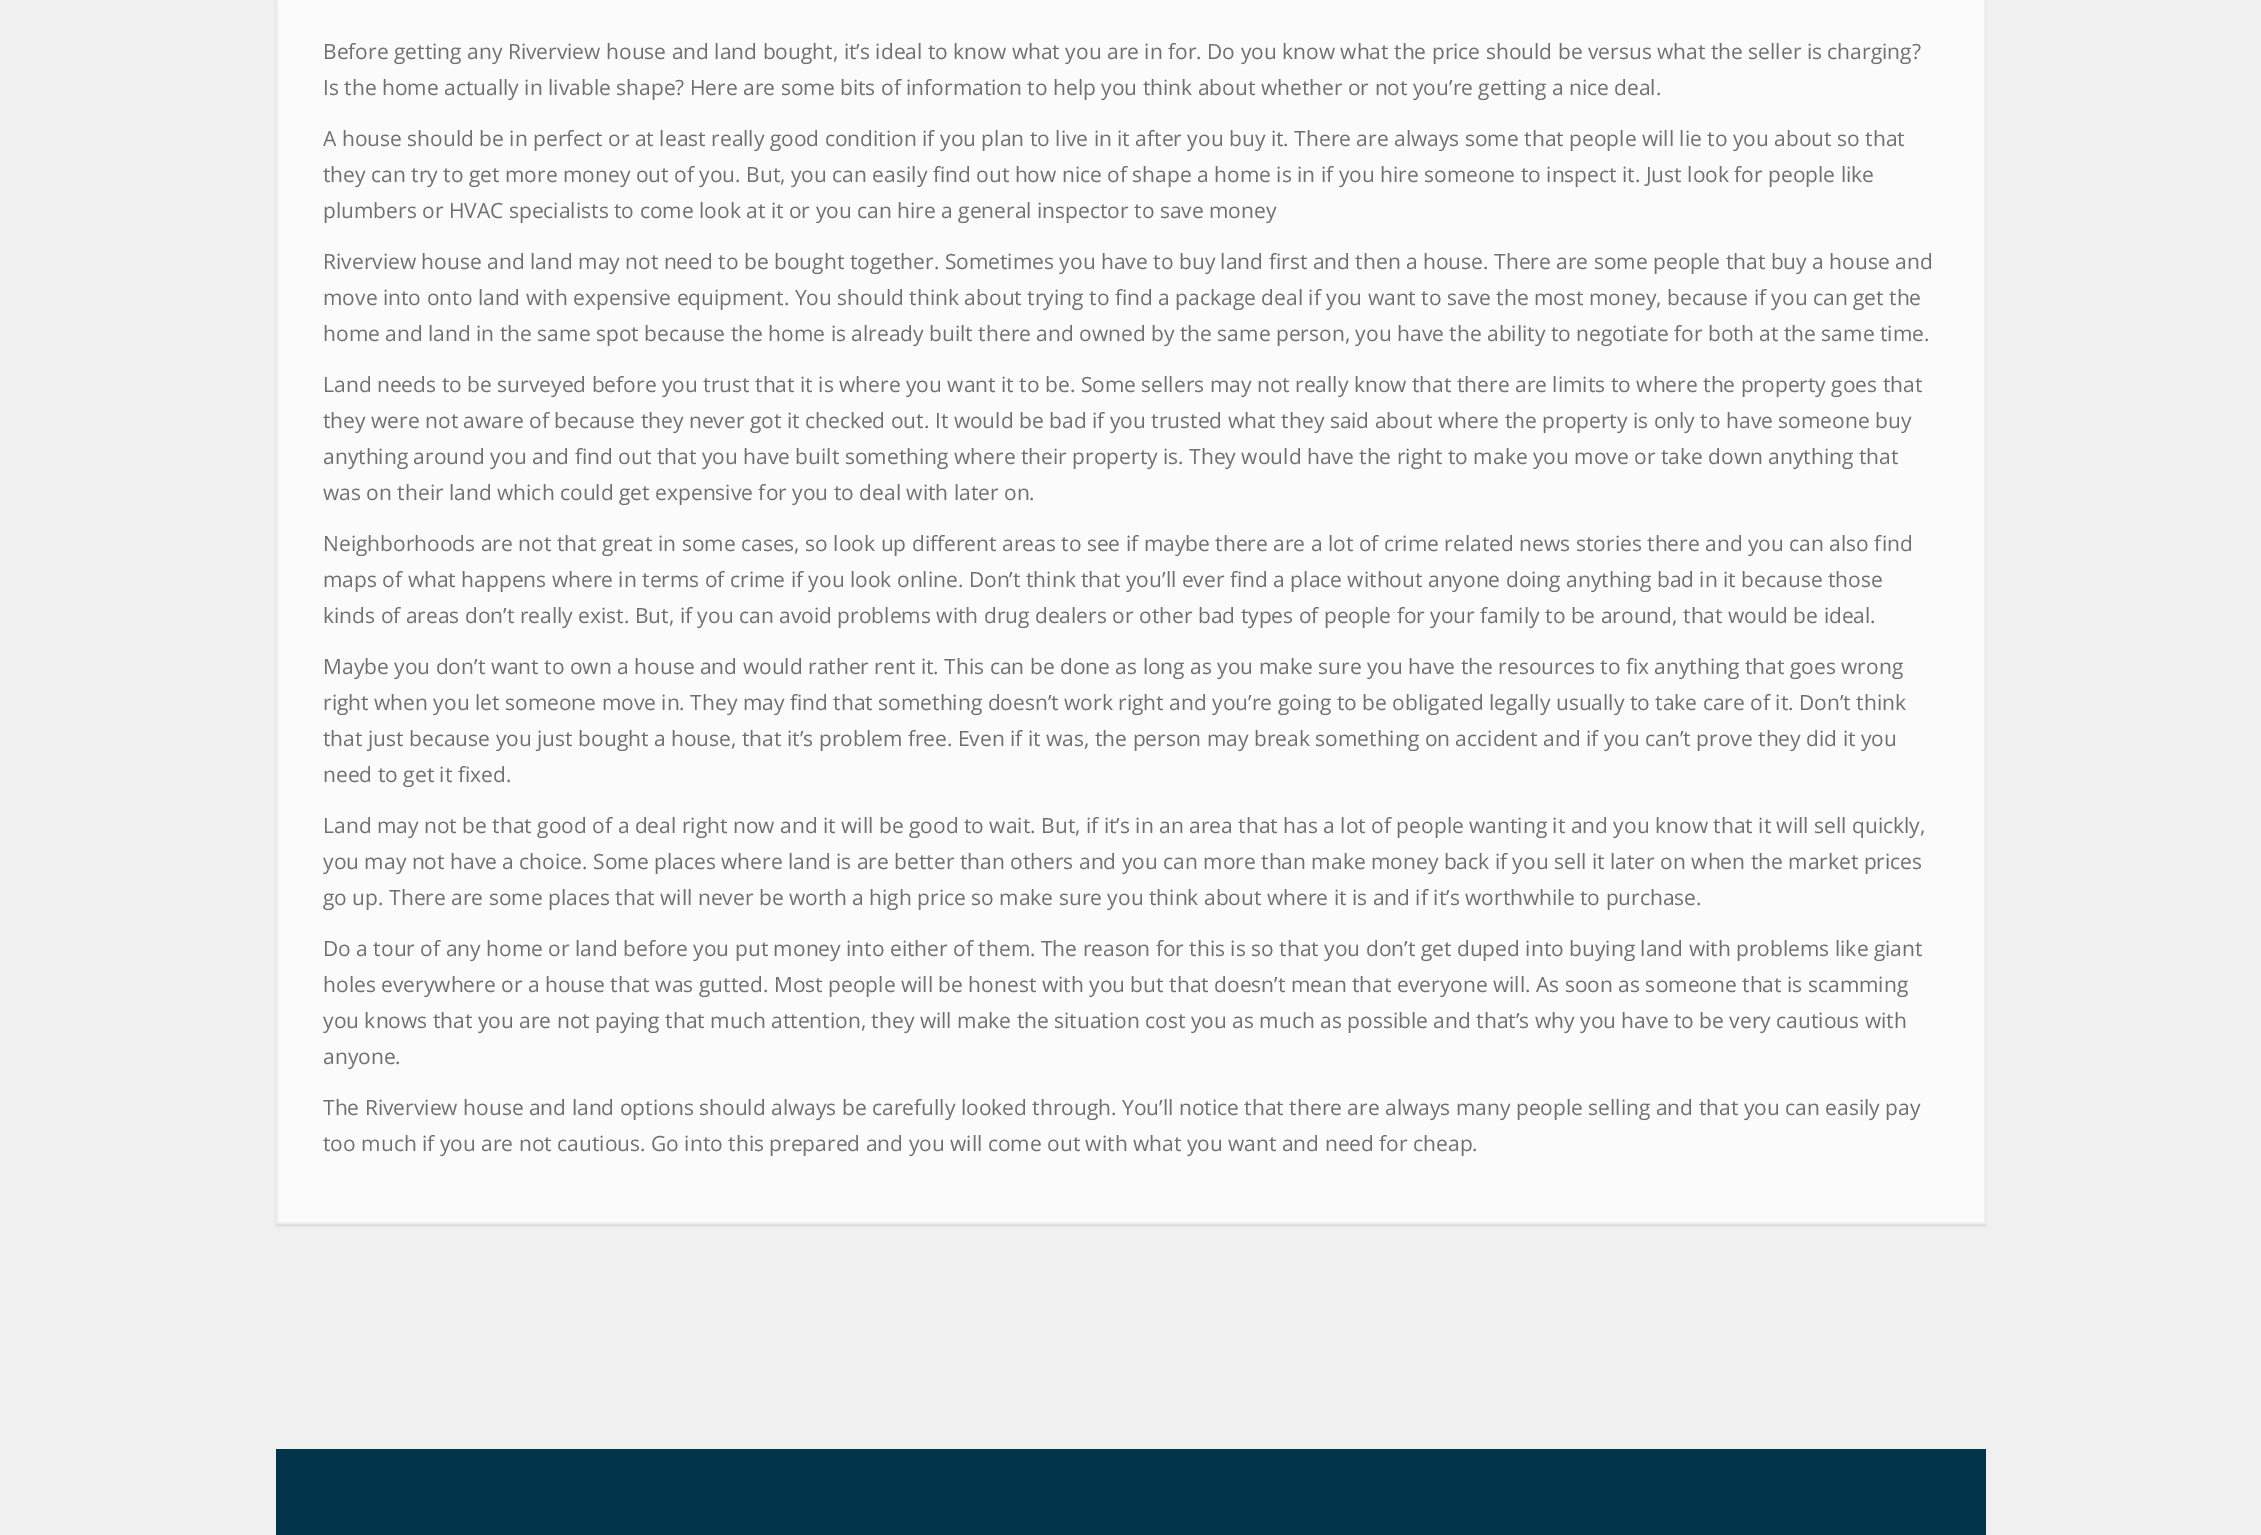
%!PS-Adobe-3.0
%%BoundingBox: 0 0 2261 1535
%%LanguageLevel: 3
%%Pages: 1
%%EndComments
%%BeginProlog
/setink { 3 { 255 div 3 1 roll } repeat setrgbcolor } def
/usefont { [ exch dup neg 0 0 3 -1 roll 0 0 ] selectfont } def
/drawtext { setink usefont moveto show } def
/fillbox { setink rectfill } def
/setalpha { dup .setfillconstantalpha .setstrokeconstantalpha } def
/rrect { 5 dict begin { /r /h /w /y /x } { exch def } forall
  x r add y moveto x w add y 2 copy h add r arct x w add y h add x 1 index r arct
  x y h add x y r arct x y 2 copy exch w add exch r arct closepath end } def
/softshadow { 12 dict begin { /a /b /q /h /w /y /x } { exch def } forall gsave /was 0 def
  9 -2 -9 { dup b mul 4 div /e exch def 1 sub .425 mul 2.718 exch exp 1 add a .99 .min exch div /now exch def
    1 1 now sub 1 was sub div sub setalpha /was now def
    w h .min e 2 mul add 0 gt { x e sub y e sub w e 2 mul add h e 2 mul add
      q e add b .6 mul add w h .min 2 div e add .min 0 .max rrect fill } if } for grestore end } def
%%EndProlog
%%BeginSetup
<< /PageSize [2261 1535] /PageUsesTransparency true >> setpagedevice
%%EndSetup
%%Page: 1 1
0 .pushpdf14devicefilter
0 1535 translate 1 -1 scale
4 setmiterlimit
0 0 2261 1535 240 240 240 fillbox
0 0 0 setink
276 -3 1710 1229 0 1 0.1 softshadow
251 251 251 setink
277 -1 moveto 1985 -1 lineto 1985 1223 lineto 277 1223 lineto closepath gsave fill grestore
238 238 238 setink
2 setlinewidth
stroke
(Before getting any Riverview house and land bought, it’s ideal to know what you are in for. Do you know what the price should be versus what the seller is charging?) 323 59 /OpenSans-Regular 21 112 112 112 drawtext
(Is the home actually in livable shape? Here are some bits of information to help you think about whether or not you’re getting a nice deal.) 323 95 /OpenSans-Regular 21 112 112 112 drawtext
(A house should be in perfect or at least really good condition if you plan to live in it after you buy it. There are always some that people will lie to you about so that) 323 146 /OpenSans-Regular 21 112 112 112 drawtext
(they can try to get more money out of you. But, you can easily find out how nice of shape a home is in if you hire someone to inspect it. Just look for people like) 323 182 /OpenSans-Regular 21 112 112 112 drawtext
(plumbers or HVAC specialists to come look at it or you can hire a general inspector to save money) 323 218 /OpenSans-Regular 21 112 112 112 drawtext
(Riverview house and land may not need to be bought together. Sometimes you have to buy land first and then a house. There are some people that buy a house and) 323 269 /OpenSans-Regular 21 112 112 112 drawtext
(move into onto land with expensive equipment. You should think about trying to find a package deal if you want to save the most money, because if you can get the) 323 305 /OpenSans-Regular 21 112 112 112 drawtext
(home and land in the same spot because the home is already built there and owned by the same person, you have the ability to negotiate for both at the same time.) 323 341 /OpenSans-Regular 21 112 112 112 drawtext
(Land needs to be surveyed before you trust that it is where you want it to be. Some sellers may not really know that there are limits to where the property goes that) 323 392 /OpenSans-Regular 21 112 112 112 drawtext
(they were not aware of because they never got it checked out. It would be bad if you trusted what they said about where the property is only to have someone buy) 323 428 /OpenSans-Regular 21 112 112 112 drawtext
(anything around you and find out that you have built something where their property is. They would have the right to make you move or take down anything that) 323 464 /OpenSans-Regular 21 112 112 112 drawtext
(was on their land which could get expensive for you to deal with later on.) 323 500 /OpenSans-Regular 21 112 112 112 drawtext
(Neighborhoods are not that great in some cases, so look up different areas to see if maybe there are a lot of crime related news stories there and you can also find) 323 551 /OpenSans-Regular 21 112 112 112 drawtext
(maps of what happens where in terms of crime if you look online. Don’t think that you’ll ever find a place without anyone doing anything bad in it because those) 323 587 /OpenSans-Regular 21 112 112 112 drawtext
(kinds of areas don’t really exist. But, if you can avoid problems with drug dealers or other bad types of people for your family to be around, that would be ideal.) 323 623 /OpenSans-Regular 21 112 112 112 drawtext
(Maybe you don’t want to own a house and would rather rent it. This can be done as long as you make sure you have the resources to fix anything that goes wrong) 323 674 /OpenSans-Regular 21 112 112 112 drawtext
(right when you let someone move in. They may find that something doesn’t work right and you’re going to be obligated legally usually to take care of it. Don’t think) 323 710 /OpenSans-Regular 21 112 112 112 drawtext
(that just because you just bought a house, that it’s problem free. Even if it was, the person may break something on accident and if you can’t prove they did it you) 323 746 /OpenSans-Regular 21 112 112 112 drawtext
(need to get it fixed.) 323 782 /OpenSans-Regular 21 112 112 112 drawtext
(Land may not be that good of a deal right now and it will be good to wait. But, if it’s in an area that has a lot of people wanting it and you know that it will sell quickly,) 323 833 /OpenSans-Regular 21 112 112 112 drawtext
(you may not have a choice. Some places where land is are better than others and you can more than make money back if you sell it later on when the market prices) 323 869 /OpenSans-Regular 21 112 112 112 drawtext
(go up. There are some places that will never be worth a high price so make sure you think about where it is and if it’s worthwhile to purchase.) 323 905 /OpenSans-Regular 21 112 112 112 drawtext
(Do a tour of any home or land before you put money into either of them. The reason for this is so that you don’t get duped into buying land with problems like giant) 323 956 /OpenSans-Regular 21 112 112 112 drawtext
(holes everywhere or a house that was gutted. Most people will be honest with you but that doesn’t mean that everyone will. As soon as someone that is scamming) 323 992 /OpenSans-Regular 21 112 112 112 drawtext
(you knows that you are not paying that much attention, they will make the situation cost you as much as possible and that’s why you have to be very cautious with) 323 1028 /OpenSans-Regular 21 112 112 112 drawtext
(anyone.) 323 1064 /OpenSans-Regular 21 112 112 112 drawtext
(The Riverview house and land options should always be carefully looked through. You’ll notice that there are always many people selling and that you can easily pay) 323 1115 /OpenSans-Regular 21 112 112 112 drawtext
(too much if you are not cautious. Go into this prepared and you will come out with what you want and need for cheap.) 323 1151 /OpenSans-Regular 21 112 112 112 drawtext
276 1449 1710 86 2 52 74 fillbox
.poppdf14devicefilter showpage
%%EOF
